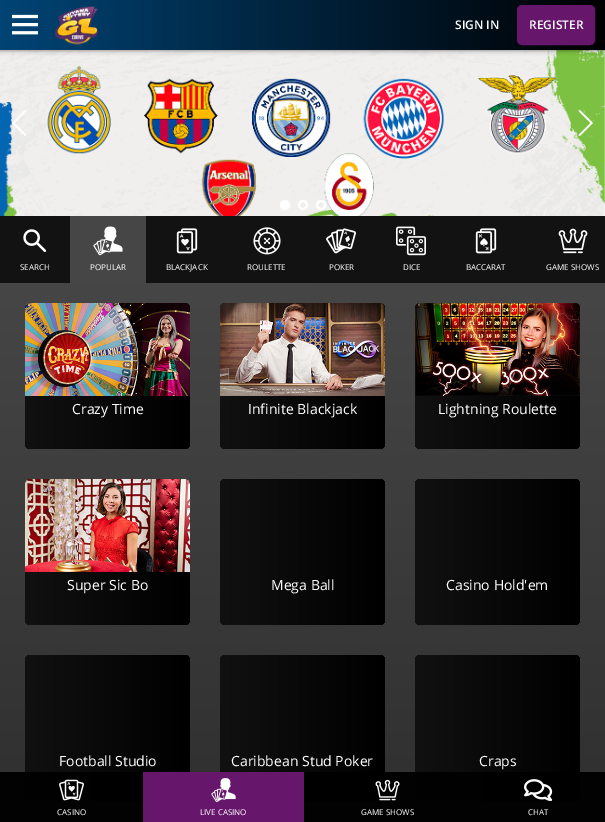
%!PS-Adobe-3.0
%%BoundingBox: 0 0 605 822
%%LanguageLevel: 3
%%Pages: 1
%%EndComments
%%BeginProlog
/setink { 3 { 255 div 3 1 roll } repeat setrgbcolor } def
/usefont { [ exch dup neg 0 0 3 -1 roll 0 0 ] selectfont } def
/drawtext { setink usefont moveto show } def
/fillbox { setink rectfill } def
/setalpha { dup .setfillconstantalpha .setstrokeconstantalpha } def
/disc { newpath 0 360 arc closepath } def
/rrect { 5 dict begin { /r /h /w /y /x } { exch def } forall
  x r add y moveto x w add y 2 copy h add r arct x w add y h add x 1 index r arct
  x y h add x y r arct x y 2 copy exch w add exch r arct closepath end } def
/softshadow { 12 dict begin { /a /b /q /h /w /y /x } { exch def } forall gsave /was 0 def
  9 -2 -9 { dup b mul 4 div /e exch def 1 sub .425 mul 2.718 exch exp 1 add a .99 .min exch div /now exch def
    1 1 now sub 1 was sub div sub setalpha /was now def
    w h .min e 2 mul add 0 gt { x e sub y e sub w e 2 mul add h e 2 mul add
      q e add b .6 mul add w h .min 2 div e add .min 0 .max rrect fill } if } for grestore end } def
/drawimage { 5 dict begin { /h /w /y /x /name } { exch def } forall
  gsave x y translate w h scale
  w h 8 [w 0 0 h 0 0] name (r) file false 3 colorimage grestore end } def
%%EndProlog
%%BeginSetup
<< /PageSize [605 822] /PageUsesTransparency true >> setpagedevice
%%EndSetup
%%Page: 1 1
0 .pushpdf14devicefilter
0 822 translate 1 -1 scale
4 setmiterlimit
0 0 605 822 255 255 255 fillbox
(assets/img3.rgb) 0 50 605 166 drawimage
0 0 0 setink
0 0 605 50 0 2.5 0.5 softshadow
gsave 0 0 moveto 605 0 lineto 605 50 lineto 0 50 lineto closepath clip newpath
<< /ShadingType 2 /ColorSpace /DeviceRGB /Coords [0 25 605 25] /Extend [true true] /Function << /FunctionType 2 /Domain [0 1] /C0 [0 0.267 0.459] /C1 [0 0 0] /N 1 >> >> shfill grestore
(assets/img1.rgb) 12 14 26 21 drawimage
(assets/img2.rgb) 55 6 43 39 drawimage
(SIGN IN) 455 29 /OpenSans-SemiBold 12 255 255 255 drawtext
102 23 108 setink
518 6 76 38 4 rrect gsave fill grestore
2 setlinewidth
stroke
(REGISTER) 529 29 /OpenSans-SemiBold 12 255 255 255 drawtext
12 123 moveto 25 110 lineto 26.5 111 lineto 14.5 123 lineto 26.5 135 lineto 25 136 lineto closepath fill
593 123 moveto 580 136 lineto 578.5 135 lineto 590.5 123 lineto 578.5 111 lineto 580 110 lineto closepath fill
285 205 4 disc gsave fill grestore
stroke
303 205 4 disc stroke
321 205 4 disc stroke
0 216 605 67 18 18 18 fillbox
(assets/img4.rgb) 23 229 24 23 drawimage
(SEARCH) 20 270 /OpenSans-Regular 8 255 255 255 drawtext
70 216 76 67 70 70 70 fillbox
(assets/img5.rgb) 93 226 30 30 drawimage
(POPULAR) 90 270 /OpenSans-Regular 8 255 255 255 drawtext
(assets/img6.rgb) 176 228 22 26 drawimage
(BLACKJACK) 166 270 /OpenSans-Regular 8 255 255 255 drawtext
(assets/img7.rgb) 253 227 28 28 drawimage
(ROULETTE) 247 270 /OpenSans-Regular 8 255 255 255 drawtext
(assets/img8.rgb) 326 228 30 26 drawimage
(POKER) 329 270 /OpenSans-Regular 8 255 255 255 drawtext
(assets/img9.rgb) 396 226 30 30 drawimage
(DICE) 403 270 /OpenSans-Regular 8 255 255 255 drawtext
(assets/img10.rgb) 475 228 22 26 drawimage
(BACCARAT) 466 270 /OpenSans-Regular 8 255 255 255 drawtext
(assets/img11.rgb) 558 228 30 26 drawimage
(GAME SHOWS) 546 270 /OpenSans-Regular 8 255 255 255 drawtext
gsave 0 283 moveto 605 283 lineto 605 822 lineto 0 822 lineto closepath clip newpath
<< /ShadingType 2 /ColorSpace /DeviceRGB /Coords [302 283 303 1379] /Extend [true true] /Function << /FunctionType 2 /Domain [0 1] /C0 [0.275 0.275 0.275] /C1 [0.09 0.09 0.09] /N 1 >> >> shfill grestore
gsave 25 303 165 146 5 rrect clip newpath
<< /ShadingType 2 /ColorSpace /DeviceRGB /Coords [25 376 190 376] /Extend [true true] /Function << /FunctionType 2 /Domain [0 1] /C0 [0.067 0.067 0.067] /C1 [0 0 0] /N 1 >> >> shfill grestore
(assets/img12.rgb) 25 303 165 93 drawimage
(Crazy Time) 72 414 /OpenSans-Regular 14 255 255 255 drawtext
gsave 220 303 165 146 5 rrect clip newpath
<< /ShadingType 2 /ColorSpace /DeviceRGB /Coords [220 376 385 376] /Extend [true true] /Function << /FunctionType 2 /Domain [0 1] /C0 [0.067 0.067 0.067] /C1 [0 0 0] /N 1 >> >> shfill grestore
(assets/img13.rgb) 220 303 165 93 drawimage
(Infinite Blackjack) 248 414 /OpenSans-Regular 14 255 255 255 drawtext
gsave 415 303 165 146 5 rrect clip newpath
<< /ShadingType 2 /ColorSpace /DeviceRGB /Coords [415 376 580 376] /Extend [true true] /Function << /FunctionType 2 /Domain [0 1] /C0 [0.067 0.067 0.067] /C1 [0 0 0] /N 1 >> >> shfill grestore
(assets/img14.rgb) 415 303 165 93 drawimage
(Lightning Roulette) 438 414 /OpenSans-Regular 14 255 255 255 drawtext
gsave 25 479 165 146 5 rrect clip newpath
<< /ShadingType 2 /ColorSpace /DeviceRGB /Coords [25 552 190 552] /Extend [true true] /Function << /FunctionType 2 /Domain [0 1] /C0 [0.067 0.067 0.067] /C1 [0 0 0] /N 1 >> >> shfill grestore
(assets/img15.rgb) 25 479 165 93 drawimage
(Super Sic Bo) 67 590 /OpenSans-Regular 14 255 255 255 drawtext
gsave 220 479 165 146 5 rrect clip newpath
<< /ShadingType 2 /ColorSpace /DeviceRGB /Coords [220 552 385 552] /Extend [true true] /Function << /FunctionType 2 /Domain [0 1] /C0 [0.067 0.067 0.067] /C1 [0 0 0] /N 1 >> >> shfill grestore
(Mega Ball) 271 590 /OpenSans-Regular 14 255 255 255 drawtext
gsave 415 479 165 146 5 rrect clip newpath
<< /ShadingType 2 /ColorSpace /DeviceRGB /Coords [415 552 580 552] /Extend [true true] /Function << /FunctionType 2 /Domain [0 1] /C0 [0.067 0.067 0.067] /C1 [0 0 0] /N 1 >> >> shfill grestore
(Casino Hold'em) 446 590 /OpenSans-Regular 14 255 255 255 drawtext
gsave 25 655 165 146 5 rrect clip newpath
<< /ShadingType 2 /ColorSpace /DeviceRGB /Coords [25 728 190 728] /Extend [true true] /Function << /FunctionType 2 /Domain [0 1] /C0 [0.067 0.067 0.067] /C1 [0 0 0] /N 1 >> >> shfill grestore
(Football Studio) 59 766 /OpenSans-Regular 14 255 255 255 drawtext
gsave 220 655 165 146 5 rrect clip newpath
<< /ShadingType 2 /ColorSpace /DeviceRGB /Coords [220 728 385 728] /Extend [true true] /Function << /FunctionType 2 /Domain [0 1] /C0 [0.067 0.067 0.067] /C1 [0 0 0] /N 1 >> >> shfill grestore
(Caribbean Stud Poker) 231 766 /OpenSans-Regular 14 255 255 255 drawtext
gsave 415 655 165 146 5 rrect clip newpath
<< /ShadingType 2 /ColorSpace /DeviceRGB /Coords [415 728 580 728] /Extend [true true] /Function << /FunctionType 2 /Domain [0 1] /C0 [0.067 0.067 0.067] /C1 [0 0 0] /N 1 >> >> shfill grestore
(Craps) 479 766 /OpenSans-Regular 14 255 255 255 drawtext
0.95 setalpha
0 772 605 50 0 0 0 fillbox
1 setalpha
(assets/img16.rgb) 59 779 25 22 drawimage
(CASINO) 57 815 /OpenSans-Regular 8 255 255 255 drawtext
143 772 161 50 102 23 108 fillbox
(assets/img17.rgb) 211 778 25 24 drawimage
(LIVE CASINO) 200 815 /OpenSans-Regular 8 255 255 255 drawtext
(assets/img18.rgb) 375 779 25 22 drawimage
(GAME SHOWS) 361 815 /OpenSans-Regular 8 255 255 255 drawtext
(assets/img19.rgb) 524 779 29 22 drawimage
(CHAT) 528 815 /OpenSans-Regular 8 255 255 255 drawtext
.poppdf14devicefilter showpage
%%EOF
